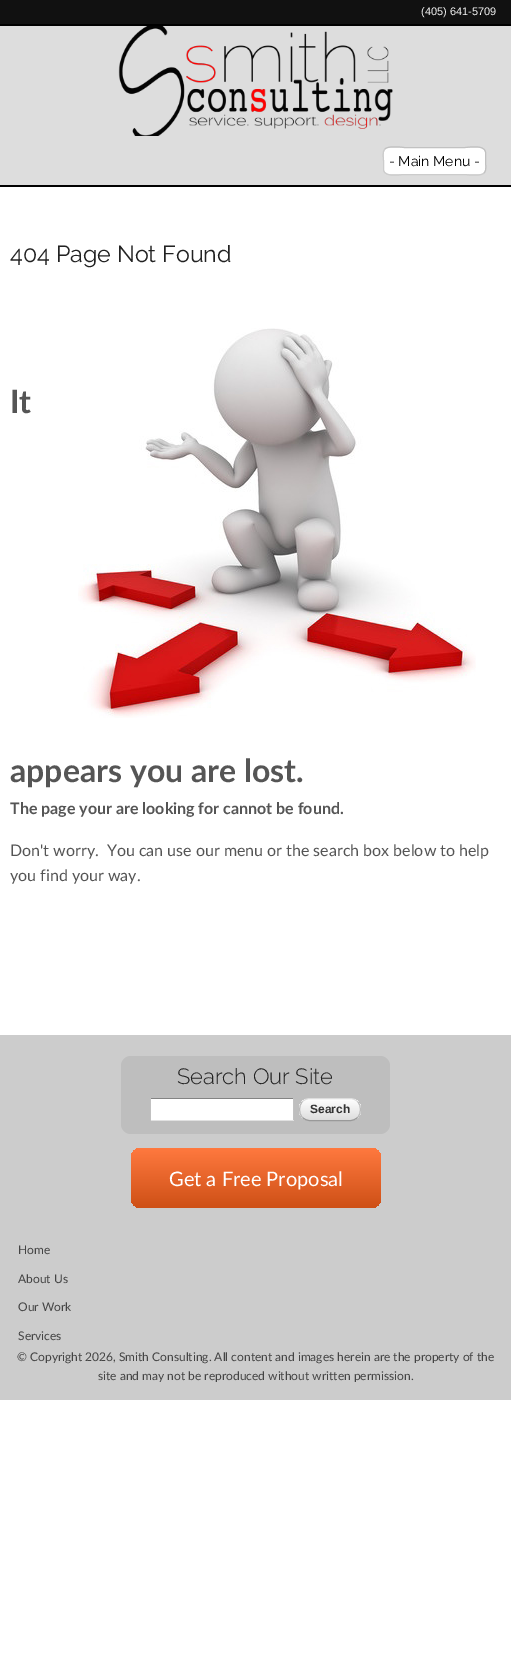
%!PS-Adobe-3.0
%%BoundingBox: 0 0 511 1655
%%LanguageLevel: 3
%%Pages: 1
%%EndComments
%%BeginProlog
/setink { 3 { 255 div 3 1 roll } repeat setrgbcolor } def
/usefont { [ exch dup neg 0 0 3 -1 roll 0 0 ] selectfont } def
/drawtext { setink usefont moveto show } def
/fillbox { setink rectfill } def
/rrect { 5 dict begin { /r /h /w /y /x } { exch def } forall
  x r add y moveto x w add y 2 copy h add r arct x w add y h add x 1 index r arct
  x y h add x y r arct x y 2 copy exch w add exch r arct closepath end } def
/drawimage { 5 dict begin { /h /w /y /x /name } { exch def } forall
  gsave x y translate w h scale
  w h 8 [w 0 0 h 0 0] name (r) file false 3 colorimage grestore end } def
%%EndProlog
%%BeginSetup
<< /PageSize [511 1655] >> setpagedevice
%%EndSetup
%%Page: 1 1
0 1655 translate 1 -1 scale
4 setmiterlimit
0 0 511 1655 255 255 255 fillbox
0 26 511 159 221 221 221 fillbox
0 0 511 24 17 17 17 fillbox
(\(405\) 641-5709) 421 15 /LiberationSans-Regular 11 242 242 242 drawtext
0 24 511 2 0 0 0 fillbox
0 185 511 2 0 0 0 fillbox
(assets/img1.rgb) 118 26 275 110 drawimage
255 255 255 setink
384 148 101 26 5 rrect fill
193 193 193 setink
385 149 moveto 389 145 404 147.5 404 147.5 curveto 465 147.5 lineto 467.5 147.5 484 144 485.5 152 curveto 485.5 161 lineto 485.5 164.5 487 170 484 173 curveto stroke
204 204 204 setink
484 173 moveto 480 177 465 174.5 465 174.5 curveto 404 174.5 lineto 401.5 174.5 385 178 383.5 170 curveto 383.5 161 lineto 383.5 157.5 382 152 385 149 curveto stroke
(- Main Menu -) 389 166 /Raleway-Regular 14 0 0 0 drawtext
(404 Page Not Found) 10 262 /Raleway-Regular 23.25 34 34 34 drawtext
(assets/img2.rgb) 78 328 398 390 drawimage
(It) 10 413 /Lato-Bold 32 85 85 85 drawtext
(appears you are lost.) 10 782 /Lato-Bold 32 85 85 85 drawtext
(The page your are looking for cannot be found.) 10 814 /Lato-Bold 16 85 85 85 drawtext
(Don't worry.  You can use our menu or the search box below to help) 10 856 /Lato-Regular 16 85 85 85 drawtext
(you find your way.) 10 881 /Lato-Regular 16 85 85 85 drawtext
0 1035 511 365 204 204 204 fillbox
190 190 190 setink
121 1056 269 78 10 rrect fill
(Search Our Site) 177 1084 /Raleway-Light 22 34 34 34 drawtext
151 1099 142 21 255 255 255 fillbox
150 1098 144 1 132 132 132 fillbox
293 1098 1 23 193 193 193 fillbox
150 1120 144 1 225 225 225 fillbox
150 1098 1 23 193 193 193 fillbox
gsave
299 1098 62 23 11 rrect clip newpath
gsave 299 1099 moveto 361 1099 lineto 361 1120 lineto 299 1120 lineto closepath clip newpath
<< /ShadingType 2 /ColorSpace /DeviceRGB /Coords [300 1099 300 1120] /Extend [true true] /Function << /FunctionType 2 /Domain [0 1] /C0 [1 1 1] /C1 [0.867 0.867 0.867] /N 1 >> >> shfill grestore
grestore
221 221 221 setink
302.5 1101.5 moveto 304.5 1099.5 307 1098.5 310 1098.5 curveto 350 1098.5 lineto 353 1098.5 355.5 1099.5 357.5 1101.5 curveto stroke
187 187 187 setink
357.5 1101.5 moveto 361.5 1105.5 361.5 1113.5 357.5 1117.5 curveto stroke
153 153 153 setink
357.5 1117.5 moveto 355.5 1119.5 353 1120.5 350 1120.5 curveto 310 1120.5 lineto 307 1120.5 304.5 1119.5 302.5 1117.5 curveto stroke
187 187 187 setink
302.5 1117.5 moveto 298.5 1113.5 298.5 1105.5 302.5 1101.5 curveto stroke
(Search) 310 1113 /LiberationSans-Bold 12 51 51 51 drawtext
gsave 131 1148 250 60 10 rrect clip newpath
<< /ShadingType 2 /ColorSpace /DeviceRGB /Coords [256 1148 256 1208] /Extend [true true] /Function << /FunctionType 2 /Domain [0 1] /C0 [1 0.475 0.247] /C1 [0.808 0.314 0.086] /N 1 >> >> shfill grestore
(Get a Free Proposal) 169 1186 /Lato-Regular 20 255 255 255 drawtext
(Home) 18 1254 /Lato-Regular 12 68 68 68 drawtext
(About Us) 18 1283 /Lato-Regular 12 68 68 68 drawtext
(Our Work) 18 1311 /Lato-Regular 12 68 68 68 drawtext
(Services) 18 1340 /Lato-Regular 12 68 68 68 drawtext
(© Copyright 2026, Smith Consulting. All content and images herein are the property of the) 17 1361 /Lato-Regular 12 68 68 68 drawtext
(site and may not be reproduced without written permission.) 98 1380 /Lato-Regular 12 68 68 68 drawtext
showpage
%%EOF
